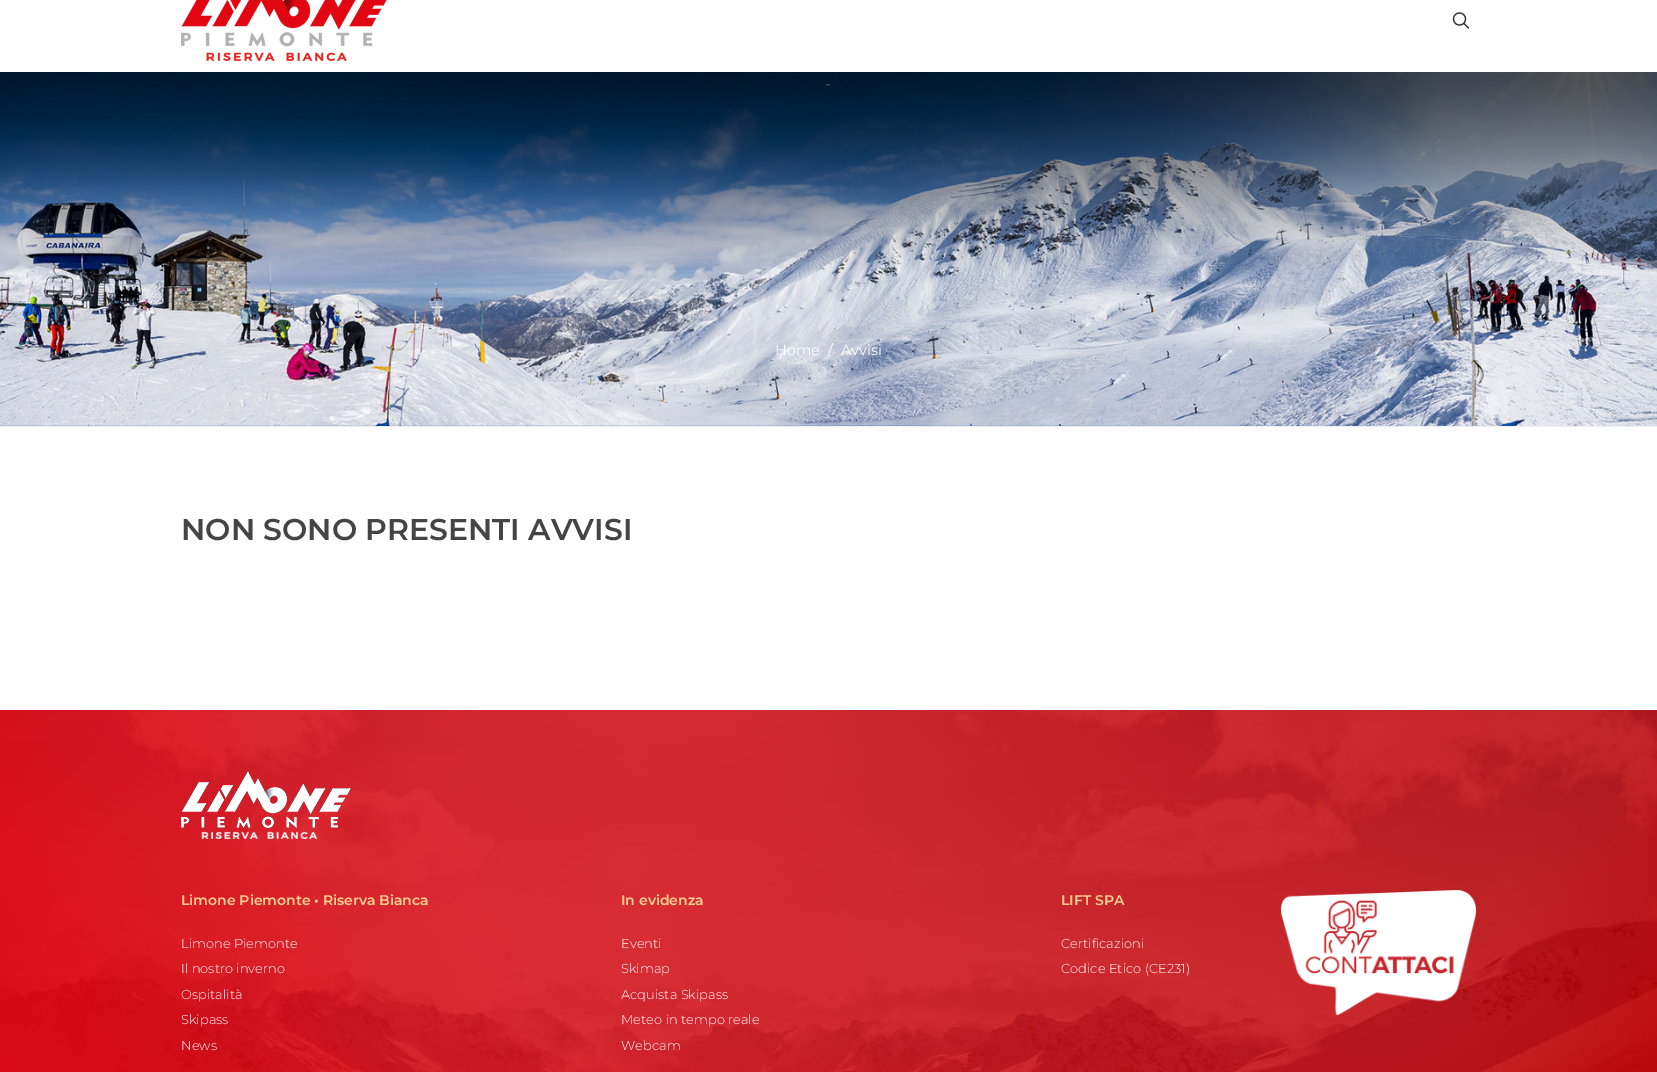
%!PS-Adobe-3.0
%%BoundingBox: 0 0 1657 1072
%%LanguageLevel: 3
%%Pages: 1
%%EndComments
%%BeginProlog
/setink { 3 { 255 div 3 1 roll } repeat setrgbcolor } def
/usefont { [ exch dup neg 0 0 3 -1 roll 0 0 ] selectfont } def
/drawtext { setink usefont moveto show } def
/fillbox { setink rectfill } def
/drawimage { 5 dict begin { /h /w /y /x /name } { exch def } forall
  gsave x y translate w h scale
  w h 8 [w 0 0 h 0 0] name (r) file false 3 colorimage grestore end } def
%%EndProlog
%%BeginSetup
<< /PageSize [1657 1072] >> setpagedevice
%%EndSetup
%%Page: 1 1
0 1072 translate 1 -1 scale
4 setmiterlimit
0 0 1657 1072 255 255 255 fillbox
(assets/img1.rgb) 181 0 206 61 drawimage
(assets/img2.rgb) 1452 12 18 17 drawimage
(assets/img3.rgb) 0 72 1657 354 drawimage
0 426 1657 1 238 238 238 fillbox
(assets/img4.rgb) 0 72 1657 198 drawimage
(-) 825 89 /Montserrat-Regular 16 85 85 85 drawtext
(Home) 775 355 /Montserrat-Regular 14.5 255 255 255 drawtext
(/) 828 355 /Montserrat-Regular 14.5 255 255 255 drawtext
(Avvisi) 841 355 /Montserrat-Regular 14.5 255 255 255 drawtext
(NON SONO PRESENTI AVVISI) 181 540 /Montserrat-SemiBold 30 68 68 68 drawtext
(assets/img5.rgb) 0 710 1657 362 drawimage
(assets/img6.rgb) 181 771 170 68 drawimage
(Limone Piemonte • Riserva Bianca) 181 905 /Montserrat-SemiBold 14 255 210 146 drawtext
(Limone Piemonte) 181 948 /Montserrat-Light 13 255 255 255 drawtext
(Il nostro inverno) 181 973 /Montserrat-Light 13 255 255 255 drawtext
(Ospitalità) 181 999 /Montserrat-Light 13 255 255 255 drawtext
(Skipass) 181 1024 /Montserrat-Light 13 255 255 255 drawtext
(News) 181 1050 /Montserrat-Light 13 255 255 255 drawtext
(In evidenza) 621 905 /Montserrat-SemiBold 14 255 210 146 drawtext
(Eventi) 621 948 /Montserrat-Light 13 255 255 255 drawtext
(Skimap) 621 973 /Montserrat-Light 13 255 255 255 drawtext
(Acquista Skipass) 621 999 /Montserrat-Light 13 255 255 255 drawtext
(Meteo in tempo reale) 621 1024 /Montserrat-Light 13 255 255 255 drawtext
(Webcam) 621 1050 /Montserrat-Light 13 255 255 255 drawtext
(LIFT SPA) 1061 905 /Montserrat-SemiBold 14 255 210 146 drawtext
(Certificazioni) 1061 948 /Montserrat-Light 13 255 255 255 drawtext
(Codice Etico \(CE231\)) 1061 973 /Montserrat-Light 13 255 255 255 drawtext
(assets/img7.rgb) 1281 890 195 125 drawimage
showpage
%%EOF
